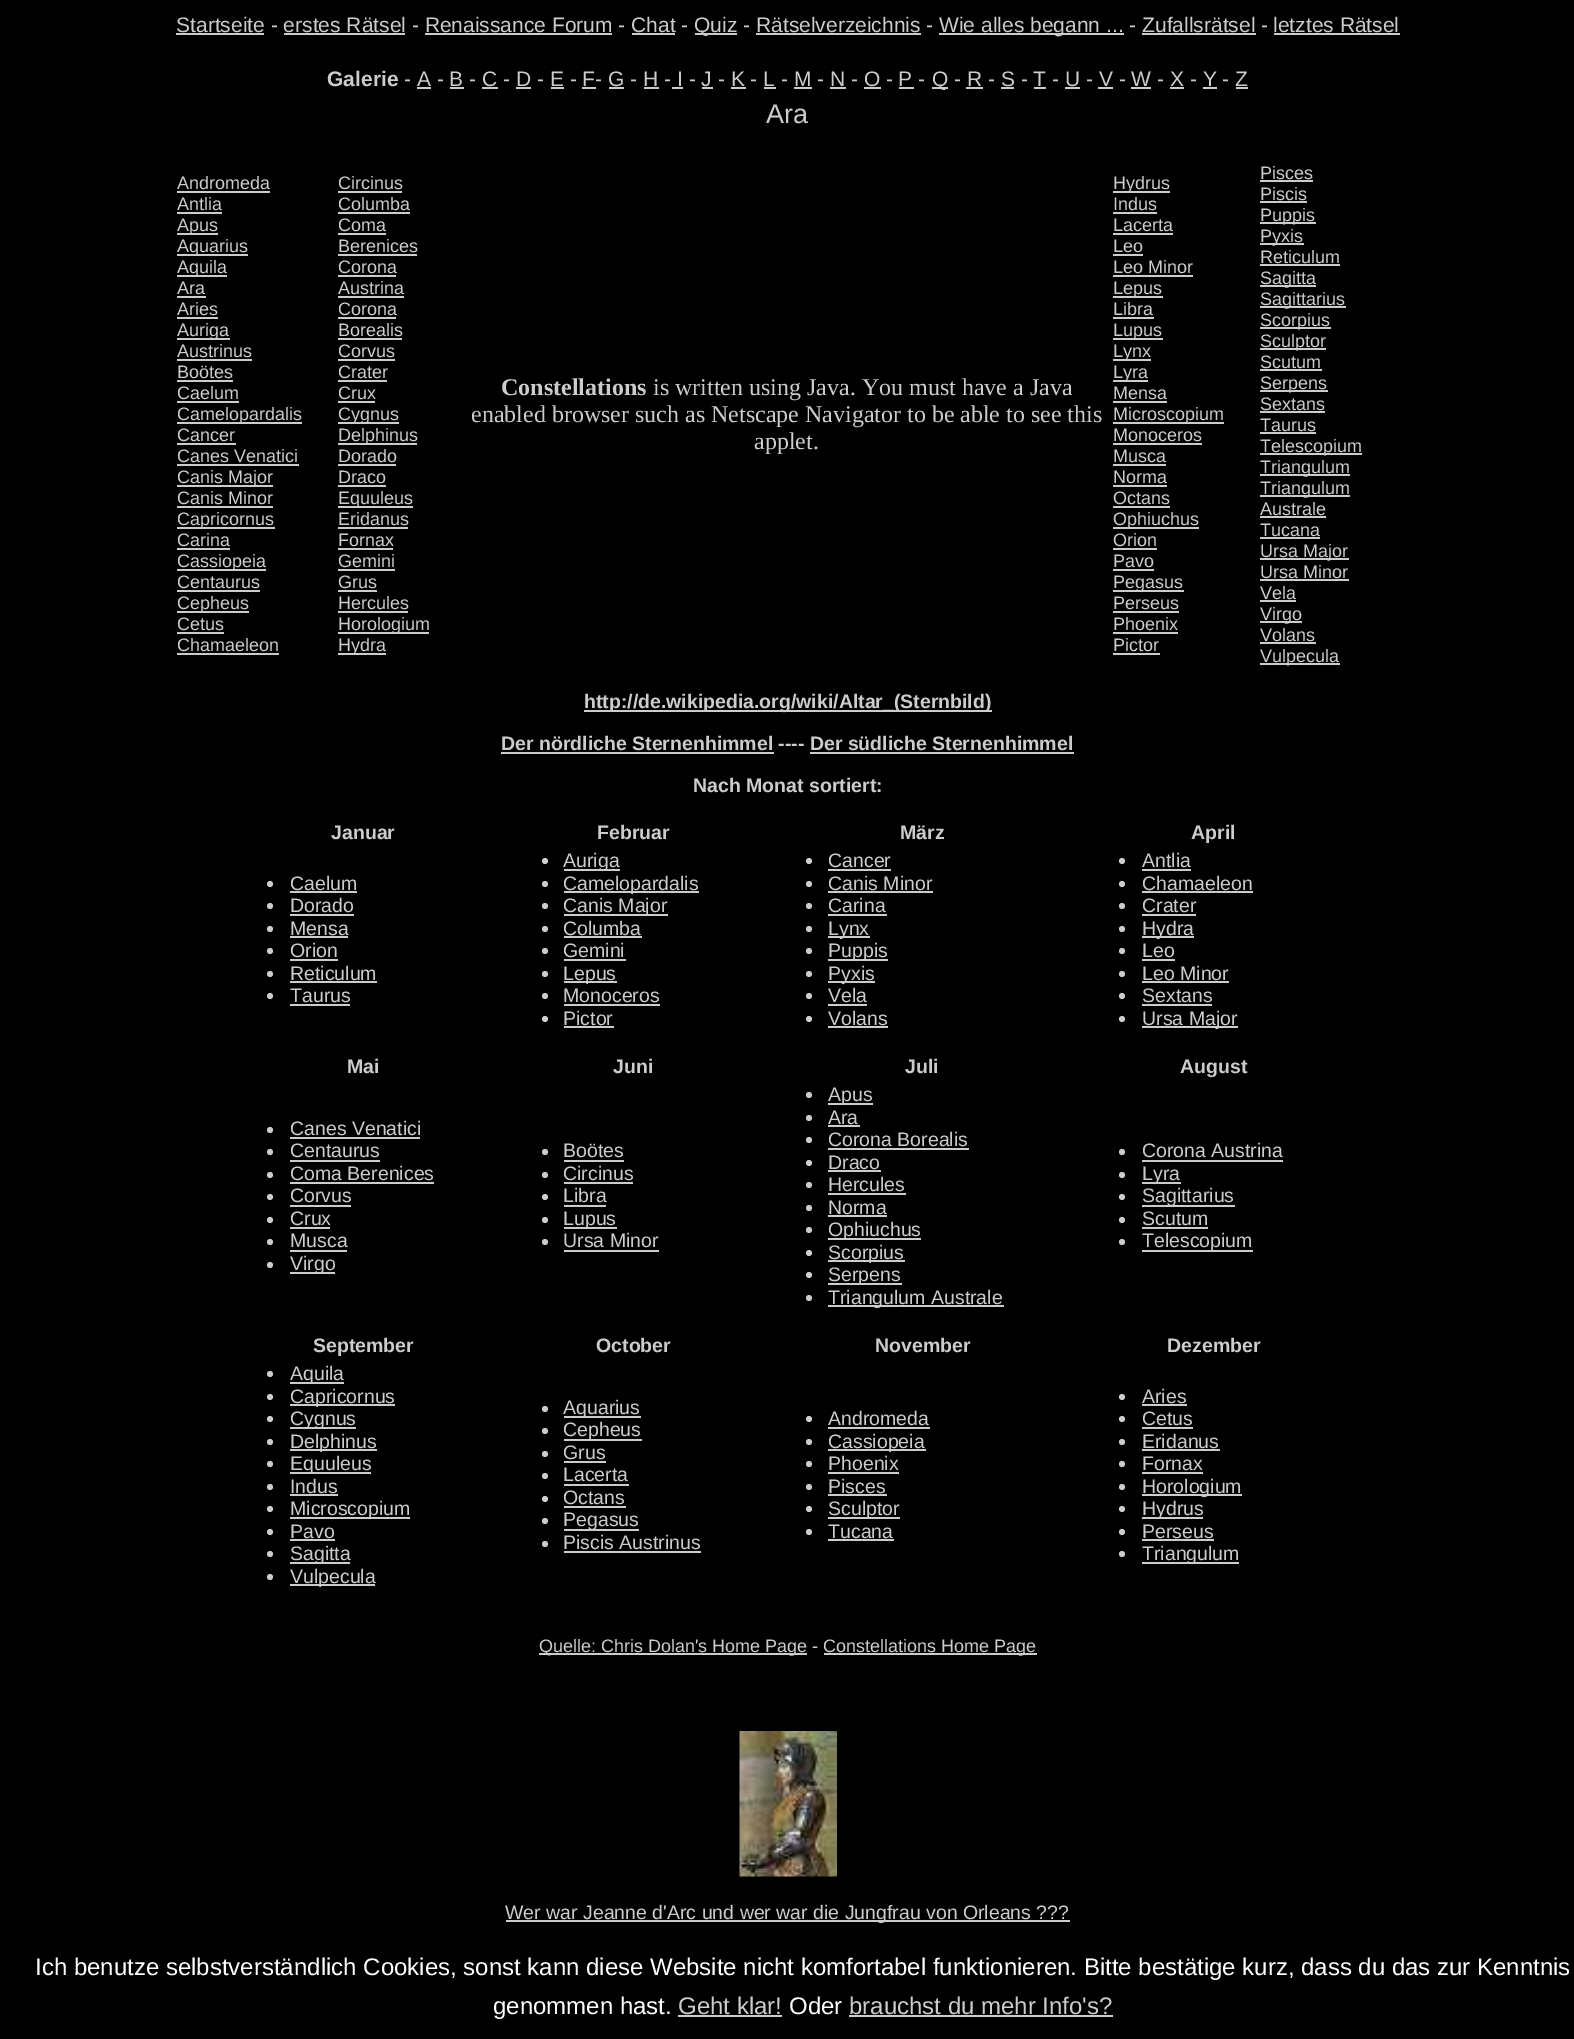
%!PS-Adobe-3.0
%%BoundingBox: 0 0 1574 2039
%%LanguageLevel: 3
%%Pages: 1
%%EndComments
%%BeginProlog
/setink { 3 { 255 div 3 1 roll } repeat setrgbcolor } def
/usefont { [ exch dup neg 0 0 3 -1 roll 0 0 ] selectfont } def
/drawtext { setink usefont moveto show } def
/fillbox { setink rectfill } def
/disc { newpath 0 360 arc closepath } def
/drawimage { 5 dict begin { /h /w /y /x /name } { exch def } forall
  gsave x y translate w h scale
  w h 8 [w 0 0 h 0 0] name (r) file false 3 colorimage grestore end } def
%%EndProlog
%%BeginSetup
<< /PageSize [1574 2039] >> setpagedevice
%%EndSetup
%%Page: 1 1
0 2039 translate 1 -1 scale
4 setmiterlimit
0 0 1574 2039 0 0 0 fillbox
(Startseite - erstes Rätsel - Renaissance Forum - Chat -) 176 32 /LiberationSans-Regular 21 204 204 204 drawtext
176 33 88 2 204 204 204 fillbox
284 33 121 2 204 204 204 fillbox
425 33 187 2 204 204 204 fillbox
632 33 43 2 204 204 204 fillbox
695 33 42 2 204 204 204 fillbox
(Quiz - Rätselverzeichnis -) 694 32 /LiberationSans-Regular 21 204 204 204 drawtext
756 33 165 2 204 204 204 fillbox
939 33 185 2 204 204 204 fillbox
(Wie alles begann ... - Zufallsrätsel -) 939 32 /LiberationSans-Regular 21 204 204 204 drawtext
1142 33 114 2 204 204 204 fillbox
(letztes Rätsel) 1273 32 /LiberationSans-Regular 21 204 204 204 drawtext
1274 33 126 2 204 204 204 fillbox
(Galerie) 327 86 /LiberationSans-Bold 21 204 204 204 drawtext
(- A - B - C - D - E - F- G - H - I - J - K - L - M - N - O - P -) 404 86 /LiberationSans-Regular 21 204 204 204 drawtext
932 87 16 2 204 204 204 fillbox
(Q - R - S - T - U - V - W - X - Y - Z) 932 86 /LiberationSans-Regular 21 204 204 204 drawtext
417 87 14 2 204 204 204 fillbox
450 87 14 2 204 204 204 fillbox
482 87 16 2 204 204 204 fillbox
516 87 15 2 204 204 204 fillbox
551 87 13 2 204 204 204 fillbox
582 87 14 2 204 204 204 fillbox
609 87 15 2 204 204 204 fillbox
644 87 15 2 204 204 204 fillbox
672 87 11 2 204 204 204 fillbox
702 87 11 2 204 204 204 fillbox
731 87 15 2 204 204 204 fillbox
764 87 12 2 204 204 204 fillbox
794 87 18 2 204 204 204 fillbox
830 87 16 2 204 204 204 fillbox
864 87 17 2 204 204 204 fillbox
899 87 15 2 204 204 204 fillbox
966 87 17 2 204 204 204 fillbox
1001 87 13 2 204 204 204 fillbox
1034 87 12 2 204 204 204 fillbox
1065 87 15 2 204 204 204 fillbox
1098 87 15 2 204 204 204 fillbox
1131 87 20 2 204 204 204 fillbox
1170 87 14 2 204 204 204 fillbox
1203 87 14 2 204 204 204 fillbox
1236 87 12 2 204 204 204 fillbox
(Ara) 766 123 /LiberationSans-Regular 27 204 204 204 drawtext
(Andromeda) 177 189 /LiberationSans-Regular 18 204 204 204 drawtext
177 191 93 2 204 204 204 fillbox
(Antlia) 177 210 /LiberationSans-Regular 18 204 204 204 drawtext
177 212 45 2 204 204 204 fillbox
177 233 41 2 204 204 204 fillbox
(Apus) 177 231 /LiberationSans-Regular 18 204 204 204 drawtext
177 254 71 2 204 204 204 fillbox
(Aquarius) 177 252 /LiberationSans-Regular 18 204 204 204 drawtext
177 275 50 2 204 204 204 fillbox
(Aquila) 177 273 /LiberationSans-Regular 18 204 204 204 drawtext
(Ara) 177 294 /LiberationSans-Regular 18 204 204 204 drawtext
177 296 29 2 204 204 204 fillbox
(Aries) 177 315 /LiberationSans-Regular 18 204 204 204 drawtext
177 317 41 2 204 204 204 fillbox
177 338 53 2 204 204 204 fillbox
(Auriga) 177 336 /LiberationSans-Regular 18 204 204 204 drawtext
(Austrinus) 177 357 /LiberationSans-Regular 18 204 204 204 drawtext
177 359 75 2 204 204 204 fillbox
(Boötes) 177 378 /LiberationSans-Regular 18 204 204 204 drawtext
177 380 56 2 204 204 204 fillbox
(Caelum) 177 399 /LiberationSans-Regular 18 204 204 204 drawtext
177 401 62 2 204 204 204 fillbox
177 422 125 2 204 204 204 fillbox
(Camelopardalis) 177 420 /LiberationSans-Regular 18 204 204 204 drawtext
(Cancer) 177 441 /LiberationSans-Regular 18 204 204 204 drawtext
177 443 59 2 204 204 204 fillbox
(Canes Venatici) 177 462 /LiberationSans-Regular 18 204 204 204 drawtext
177 464 122 2 204 204 204 fillbox
177 485 96 2 204 204 204 fillbox
(Canis Major) 177 483 /LiberationSans-Regular 18 204 204 204 drawtext
(Canis Minor) 177 504 /LiberationSans-Regular 18 204 204 204 drawtext
177 506 96 2 204 204 204 fillbox
177 527 98 2 204 204 204 fillbox
(Capricornus) 177 525 /LiberationSans-Regular 18 204 204 204 drawtext
(Carina) 177 546 /LiberationSans-Regular 18 204 204 204 drawtext
177 548 53 2 204 204 204 fillbox
177 569 89 2 204 204 204 fillbox
(Cassiopeia) 177 567 /LiberationSans-Regular 18 204 204 204 drawtext
(Centaurus) 177 588 /LiberationSans-Regular 18 204 204 204 drawtext
177 590 83 2 204 204 204 fillbox
177 611 72 2 204 204 204 fillbox
(Cepheus) 177 609 /LiberationSans-Regular 18 204 204 204 drawtext
(Cetus) 177 630 /LiberationSans-Regular 18 204 204 204 drawtext
177 632 47 2 204 204 204 fillbox
(Chamaeleon) 177 651 /LiberationSans-Regular 18 204 204 204 drawtext
177 653 102 2 204 204 204 fillbox
(Circinus) 338 189 /LiberationSans-Regular 18 204 204 204 drawtext
338 191 64 2 204 204 204 fillbox
(Columba) 338 210 /LiberationSans-Regular 18 204 204 204 drawtext
338 212 72 2 204 204 204 fillbox
(Coma) 338 231 /LiberationSans-Regular 18 204 204 204 drawtext
338 233 48 2 204 204 204 fillbox
(Berenices) 338 252 /LiberationSans-Regular 18 204 204 204 drawtext
338 254 79 2 204 204 204 fillbox
(Corona) 338 273 /LiberationSans-Regular 18 204 204 204 drawtext
338 275 58 2 204 204 204 fillbox
(Austrina) 338 294 /LiberationSans-Regular 18 204 204 204 drawtext
338 296 66 2 204 204 204 fillbox
(Corona) 338 315 /LiberationSans-Regular 18 204 204 204 drawtext
338 317 58 2 204 204 204 fillbox
(Borealis) 338 336 /LiberationSans-Regular 18 204 204 204 drawtext
338 338 64 2 204 204 204 fillbox
(Corvus) 338 357 /LiberationSans-Regular 18 204 204 204 drawtext
338 359 57 2 204 204 204 fillbox
(Crater) 338 378 /LiberationSans-Regular 18 204 204 204 drawtext
338 380 49 2 204 204 204 fillbox
(Crux) 338 399 /LiberationSans-Regular 18 204 204 204 drawtext
338 401 37 2 204 204 204 fillbox
338 422 61 2 204 204 204 fillbox
(Cygnus) 338 420 /LiberationSans-Regular 18 204 204 204 drawtext
338 443 79 2 204 204 204 fillbox
(Delphinus) 338 441 /LiberationSans-Regular 18 204 204 204 drawtext
(Dorado) 338 462 /LiberationSans-Regular 18 204 204 204 drawtext
338 464 58 2 204 204 204 fillbox
(Draco) 338 483 /LiberationSans-Regular 18 204 204 204 drawtext
338 485 48 2 204 204 204 fillbox
338 506 75 2 204 204 204 fillbox
(Equuleus) 338 504 /LiberationSans-Regular 18 204 204 204 drawtext
(Eridanus) 338 525 /LiberationSans-Regular 18 204 204 204 drawtext
338 527 70 2 204 204 204 fillbox
(Fornax) 338 546 /LiberationSans-Regular 18 204 204 204 drawtext
338 548 55 2 204 204 204 fillbox
(Gemini) 338 567 /LiberationSans-Regular 18 204 204 204 drawtext
338 569 57 2 204 204 204 fillbox
(Grus) 338 588 /LiberationSans-Regular 18 204 204 204 drawtext
338 590 39 2 204 204 204 fillbox
(Hercules) 338 609 /LiberationSans-Regular 18 204 204 204 drawtext
338 611 70 2 204 204 204 fillbox
338 632 91 2 204 204 204 fillbox
(Horologium) 338 630 /LiberationSans-Regular 18 204 204 204 drawtext
338 653 48 2 204 204 204 fillbox
(Hydra) 338 651 /LiberationSans-Regular 18 204 204 204 drawtext
(Constellations) 501 395 /LiberationSerif-Bold 24 204 204 204 drawtext
(is written using Java. You must have a Java) 653 395 /LiberationSerif-Regular 24 204 204 204 drawtext
(enabled browser such as Netscape Navigator to be able to see this) 471 422 /LiberationSerif-Regular 24 204 204 204 drawtext
(applet.) 754 449 /LiberationSerif-Regular 24 204 204 204 drawtext
1113 191 57 2 204 204 204 fillbox
(Hydrus) 1113 189 /LiberationSans-Regular 18 204 204 204 drawtext
(Indus) 1113 210 /LiberationSans-Regular 18 204 204 204 drawtext
1113 212 44 2 204 204 204 fillbox
(Lacerta) 1113 231 /LiberationSans-Regular 18 204 204 204 drawtext
1113 233 60 2 204 204 204 fillbox
(Leo) 1113 252 /LiberationSans-Regular 18 204 204 204 drawtext
1113 254 30 2 204 204 204 fillbox
(Leo Minor) 1113 273 /LiberationSans-Regular 18 204 204 204 drawtext
1113 275 80 2 204 204 204 fillbox
1113 296 50 2 204 204 204 fillbox
(Lepus) 1113 294 /LiberationSans-Regular 18 204 204 204 drawtext
(Libra) 1113 315 /LiberationSans-Regular 18 204 204 204 drawtext
1113 317 41 2 204 204 204 fillbox
1113 338 50 2 204 204 204 fillbox
(Lupus) 1113 336 /LiberationSans-Regular 18 204 204 204 drawtext
1113 359 38 2 204 204 204 fillbox
(Lynx) 1113 357 /LiberationSans-Regular 18 204 204 204 drawtext
1113 380 35 2 204 204 204 fillbox
(Lyra) 1113 378 /LiberationSans-Regular 18 204 204 204 drawtext
(Mensa) 1113 399 /LiberationSans-Regular 18 204 204 204 drawtext
1113 401 54 2 204 204 204 fillbox
1113 422 111 2 204 204 204 fillbox
(Microscopium) 1113 420 /LiberationSans-Regular 18 204 204 204 drawtext
(Monoceros) 1113 441 /LiberationSans-Regular 18 204 204 204 drawtext
1113 443 89 2 204 204 204 fillbox
(Musca) 1113 462 /LiberationSans-Regular 18 204 204 204 drawtext
1113 464 53 2 204 204 204 fillbox
(Norma) 1113 483 /LiberationSans-Regular 18 204 204 204 drawtext
1113 485 54 2 204 204 204 fillbox
(Octans) 1113 504 /LiberationSans-Regular 18 204 204 204 drawtext
1113 506 57 2 204 204 204 fillbox
1113 527 86 2 204 204 204 fillbox
(Ophiuchus) 1113 525 /LiberationSans-Regular 18 204 204 204 drawtext
(Orion) 1113 546 /LiberationSans-Regular 18 204 204 204 drawtext
1113 548 44 2 204 204 204 fillbox
(Pavo) 1113 567 /LiberationSans-Regular 18 204 204 204 drawtext
1113 569 41 2 204 204 204 fillbox
1113 590 71 2 204 204 204 fillbox
(Pegasus) 1113 588 /LiberationSans-Regular 18 204 204 204 drawtext
(Perseus) 1113 609 /LiberationSans-Regular 18 204 204 204 drawtext
1113 611 66 2 204 204 204 fillbox
(Phoenix) 1113 630 /LiberationSans-Regular 18 204 204 204 drawtext
1113 632 65 2 204 204 204 fillbox
(Pictor) 1113 651 /LiberationSans-Regular 18 204 204 204 drawtext
1113 653 47 2 204 204 204 fillbox
(Pisces) 1260 179 /LiberationSans-Regular 18 204 204 204 drawtext
1260 180 53 2 204 204 204 fillbox
(Piscis) 1260 200 /LiberationSans-Regular 18 204 204 204 drawtext
1260 201 47 2 204 204 204 fillbox
1260 222 56 2 204 204 204 fillbox
(Puppis) 1260 221 /LiberationSans-Regular 18 204 204 204 drawtext
1260 243 44 2 204 204 204 fillbox
(Pyxis) 1260 242 /LiberationSans-Regular 18 204 204 204 drawtext
(Reticulum) 1260 263 /LiberationSans-Regular 18 204 204 204 drawtext
1260 264 80 2 204 204 204 fillbox
1260 285 56 2 204 204 204 fillbox
(Sagitta) 1260 284 /LiberationSans-Regular 18 204 204 204 drawtext
1260 306 86 2 204 204 204 fillbox
(Sagittarius) 1260 305 /LiberationSans-Regular 18 204 204 204 drawtext
1260 327 71 2 204 204 204 fillbox
(Scorpius) 1260 326 /LiberationSans-Regular 18 204 204 204 drawtext
1260 348 66 2 204 204 204 fillbox
(Sculptor) 1260 347 /LiberationSans-Regular 18 204 204 204 drawtext
(Scutum) 1260 368 /LiberationSans-Regular 18 204 204 204 drawtext
1260 369 62 2 204 204 204 fillbox
1260 390 68 2 204 204 204 fillbox
(Serpens) 1260 389 /LiberationSans-Regular 18 204 204 204 drawtext
(Sextans) 1260 410 /LiberationSans-Regular 18 204 204 204 drawtext
1260 411 65 2 204 204 204 fillbox
(Taurus) 1260 431 /LiberationSans-Regular 18 204 204 204 drawtext
1260 432 56 2 204 204 204 fillbox
1260 453 102 2 204 204 204 fillbox
(Telescopium) 1260 452 /LiberationSans-Regular 18 204 204 204 drawtext
1260 474 90 2 204 204 204 fillbox
(Triangulum) 1260 473 /LiberationSans-Regular 18 204 204 204 drawtext
1260 495 90 2 204 204 204 fillbox
(Triangulum) 1260 494 /LiberationSans-Regular 18 204 204 204 drawtext
(Australe) 1260 515 /LiberationSans-Regular 18 204 204 204 drawtext
1260 516 66 2 204 204 204 fillbox
(Tucana) 1260 536 /LiberationSans-Regular 18 204 204 204 drawtext
1260 537 60 2 204 204 204 fillbox
1260 558 89 2 204 204 204 fillbox
(Ursa Major) 1260 557 /LiberationSans-Regular 18 204 204 204 drawtext
(Ursa Minor) 1260 578 /LiberationSans-Regular 18 204 204 204 drawtext
1260 579 89 2 204 204 204 fillbox
(Vela) 1260 599 /LiberationSans-Regular 18 204 204 204 drawtext
1260 600 36 2 204 204 204 fillbox
1260 621 42 2 204 204 204 fillbox
(Virgo) 1260 620 /LiberationSans-Regular 18 204 204 204 drawtext
(Volans) 1260 641 /LiberationSans-Regular 18 204 204 204 drawtext
1260 642 56 2 204 204 204 fillbox
1260 663 80 2 204 204 204 fillbox
(Vulpecula) 1260 662 /LiberationSans-Regular 18 204 204 204 drawtext
584 710 408 2 204 204 204 fillbox
(http://de.wikipedia.org/wiki/Altar_\(Sternbild\)) 584 708 /LiberationSans-Bold 19.5 204 204 204 drawtext
(Der nördliche Sternenhimmel ---- Der südliche Sternenhimmel) 501 750 /LiberationSans-Bold 19.5 204 204 204 drawtext
501 752 273 2 204 204 204 fillbox
810 752 264 2 204 204 204 fillbox
(Nach Monat sortiert:) 693 792 /LiberationSans-Bold 19.5 204 204 204 drawtext
(Januar) 331 839 /LiberationSans-Bold 19.5 204 204 204 drawtext
(Februar) 597 839 /LiberationSans-Bold 19.5 204 204 204 drawtext
(März) 900 839 /LiberationSans-Bold 19.5 204 204 204 drawtext
(April) 1191 839 /LiberationSans-Bold 19.5 204 204 204 drawtext
270 884 3 disc fill
(Caelum) 290 890 /LiberationSans-Regular 19.5 204 204 204 drawtext
290 891 67 2 204 204 204 fillbox
270 906 3 disc fill
(Dorado) 290 912 /LiberationSans-Regular 19.5 204 204 204 drawtext
290 914 64 2 204 204 204 fillbox
270 929 3 disc fill
(Mensa) 290 935 /LiberationSans-Regular 19.5 204 204 204 drawtext
290 936 58 2 204 204 204 fillbox
270 951 3 disc fill
(Orion) 290 957 /LiberationSans-Regular 19.5 204 204 204 drawtext
290 959 48 2 204 204 204 fillbox
270 974 3 disc fill
(Reticulum) 290 980 /LiberationSans-Regular 19.5 204 204 204 drawtext
290 981 87 2 204 204 204 fillbox
270 996 3 disc fill
(Taurus) 290 1002 /LiberationSans-Regular 19.5 204 204 204 drawtext
290 1004 60 2 204 204 204 fillbox
545 861 3 disc fill
564 869 56 2 204 204 204 fillbox
(Auriga) 563 867 /LiberationSans-Regular 19.5 204 204 204 drawtext
545 884 3 disc fill
564 891 135 2 204 204 204 fillbox
(Camelopardalis) 563 890 /LiberationSans-Regular 19.5 204 204 204 drawtext
545 906 3 disc fill
564 914 104 2 204 204 204 fillbox
(Canis Major) 563 912 /LiberationSans-Regular 19.5 204 204 204 drawtext
545 929 3 disc fill
(Columba) 563 935 /LiberationSans-Regular 19.5 204 204 204 drawtext
564 936 78 2 204 204 204 fillbox
545 951 3 disc fill
(Gemini) 563 957 /LiberationSans-Regular 19.5 204 204 204 drawtext
564 959 62 2 204 204 204 fillbox
545 974 3 disc fill
564 981 53 2 204 204 204 fillbox
(Lepus) 563 980 /LiberationSans-Regular 19.5 204 204 204 drawtext
545 996 3 disc fill
(Monoceros) 563 1002 /LiberationSans-Regular 19.5 204 204 204 drawtext
564 1004 96 2 204 204 204 fillbox
545 1019 3 disc fill
(Pictor) 563 1025 /LiberationSans-Regular 19.5 204 204 204 drawtext
564 1026 50 2 204 204 204 fillbox
809 861 3 disc fill
(Cancer) 828 867 /LiberationSans-Regular 19.5 204 204 204 drawtext
828 869 63 2 204 204 204 fillbox
809 884 3 disc fill
(Canis Minor) 828 890 /LiberationSans-Regular 19.5 204 204 204 drawtext
828 891 105 2 204 204 204 fillbox
809 906 3 disc fill
(Carina) 828 912 /LiberationSans-Regular 19.5 204 204 204 drawtext
828 914 59 2 204 204 204 fillbox
809 929 3 disc fill
828 936 42 2 204 204 204 fillbox
(Lynx) 828 935 /LiberationSans-Regular 19.5 204 204 204 drawtext
809 951 3 disc fill
828 959 60 2 204 204 204 fillbox
(Puppis) 828 957 /LiberationSans-Regular 19.5 204 204 204 drawtext
809 974 3 disc fill
828 981 47 2 204 204 204 fillbox
(Pyxis) 828 980 /LiberationSans-Regular 19.5 204 204 204 drawtext
809 996 3 disc fill
(Vela) 828 1002 /LiberationSans-Regular 19.5 204 204 204 drawtext
828 1004 39 2 204 204 204 fillbox
809 1019 3 disc fill
(Volans) 828 1025 /LiberationSans-Regular 19.5 204 204 204 drawtext
828 1026 60 2 204 204 204 fillbox
1122 861 3 disc fill
(Antlia) 1142 867 /LiberationSans-Regular 19.5 204 204 204 drawtext
1142 869 49 2 204 204 204 fillbox
1122 884 3 disc fill
(Chamaeleon) 1142 890 /LiberationSans-Regular 19.5 204 204 204 drawtext
1142 891 111 2 204 204 204 fillbox
1122 906 3 disc fill
(Crater) 1142 912 /LiberationSans-Regular 19.5 204 204 204 drawtext
1142 914 54 2 204 204 204 fillbox
1122 929 3 disc fill
1142 936 52 2 204 204 204 fillbox
(Hydra) 1142 935 /LiberationSans-Regular 19.5 204 204 204 drawtext
1122 951 3 disc fill
(Leo) 1142 957 /LiberationSans-Regular 19.5 204 204 204 drawtext
1142 959 33 2 204 204 204 fillbox
1122 974 3 disc fill
(Leo Minor) 1142 980 /LiberationSans-Regular 19.5 204 204 204 drawtext
1142 981 87 2 204 204 204 fillbox
1122 996 3 disc fill
(Sextans) 1142 1002 /LiberationSans-Regular 19.5 204 204 204 drawtext
1142 1004 70 2 204 204 204 fillbox
1122 1019 3 disc fill
1142 1026 96 2 204 204 204 fillbox
(Ursa Major) 1142 1025 /LiberationSans-Regular 19.5 204 204 204 drawtext
(Mai) 347 1073 /LiberationSans-Bold 19.5 204 204 204 drawtext
(Juni) 613 1073 /LiberationSans-Bold 19.5 204 204 204 drawtext
(Juli) 905 1073 /LiberationSans-Bold 19.5 204 204 204 drawtext
(August) 1180 1073 /LiberationSans-Bold 19.5 204 204 204 drawtext
270 1130 3 disc fill
(Canes Venatici) 290 1135 /LiberationSans-Regular 19.5 204 204 204 drawtext
290 1137 130 2 204 204 204 fillbox
270 1152 3 disc fill
(Centaurus) 290 1157 /LiberationSans-Regular 19.5 204 204 204 drawtext
290 1160 90 2 204 204 204 fillbox
270 1175 3 disc fill
(Coma Berenices) 290 1180 /LiberationSans-Regular 19.5 204 204 204 drawtext
290 1182 144 2 204 204 204 fillbox
270 1197 3 disc fill
(Corvus) 290 1202 /LiberationSans-Regular 19.5 204 204 204 drawtext
290 1205 61 2 204 204 204 fillbox
270 1220 3 disc fill
(Crux) 290 1225 /LiberationSans-Regular 19.5 204 204 204 drawtext
290 1227 40 2 204 204 204 fillbox
270 1242 3 disc fill
(Musca) 290 1247 /LiberationSans-Regular 19.5 204 204 204 drawtext
290 1250 57 2 204 204 204 fillbox
270 1265 3 disc fill
290 1272 45 2 204 204 204 fillbox
(Virgo) 290 1270 /LiberationSans-Regular 19.5 204 204 204 drawtext
545 1152 3 disc fill
(Boötes) 563 1157 /LiberationSans-Regular 19.5 204 204 204 drawtext
564 1160 60 2 204 204 204 fillbox
545 1175 3 disc fill
(Circinus) 563 1180 /LiberationSans-Regular 19.5 204 204 204 drawtext
564 1182 69 2 204 204 204 fillbox
545 1197 3 disc fill
(Libra) 563 1202 /LiberationSans-Regular 19.5 204 204 204 drawtext
564 1205 42 2 204 204 204 fillbox
545 1220 3 disc fill
564 1227 53 2 204 204 204 fillbox
(Lupus) 563 1225 /LiberationSans-Regular 19.5 204 204 204 drawtext
545 1242 3 disc fill
(Ursa Minor) 563 1247 /LiberationSans-Regular 19.5 204 204 204 drawtext
564 1250 95 2 204 204 204 fillbox
809 1095 3 disc fill
828 1103 45 2 204 204 204 fillbox
(Apus) 828 1101 /LiberationSans-Regular 19.5 204 204 204 drawtext
809 1118 3 disc fill
(Ara) 828 1124 /LiberationSans-Regular 19.5 204 204 204 drawtext
828 1125 32 2 204 204 204 fillbox
809 1140 3 disc fill
(Corona Borealis) 828 1146 /LiberationSans-Regular 19.5 204 204 204 drawtext
828 1148 141 2 204 204 204 fillbox
809 1163 3 disc fill
(Draco) 828 1169 /LiberationSans-Regular 19.5 204 204 204 drawtext
828 1170 53 2 204 204 204 fillbox
809 1185 3 disc fill
(Hercules) 828 1191 /LiberationSans-Regular 19.5 204 204 204 drawtext
828 1193 78 2 204 204 204 fillbox
809 1208 3 disc fill
(Norma) 828 1214 /LiberationSans-Regular 19.5 204 204 204 drawtext
828 1215 59 2 204 204 204 fillbox
809 1230 3 disc fill
828 1238 93 2 204 204 204 fillbox
(Ophiuchus) 828 1236 /LiberationSans-Regular 19.5 204 204 204 drawtext
809 1253 3 disc fill
828 1260 77 2 204 204 204 fillbox
(Scorpius) 828 1259 /LiberationSans-Regular 19.5 204 204 204 drawtext
809 1275 3 disc fill
828 1283 74 2 204 204 204 fillbox
(Serpens) 828 1281 /LiberationSans-Regular 19.5 204 204 204 drawtext
809 1298 3 disc fill
828 1305 176 2 204 204 204 fillbox
(Triangulum Australe) 828 1304 /LiberationSans-Regular 19.5 204 204 204 drawtext
1122 1152 3 disc fill
(Corona Austrina) 1142 1157 /LiberationSans-Regular 19.5 204 204 204 drawtext
1142 1160 141 2 204 204 204 fillbox
1122 1175 3 disc fill
1142 1182 39 2 204 204 204 fillbox
(Lyra) 1142 1180 /LiberationSans-Regular 19.5 204 204 204 drawtext
1122 1197 3 disc fill
1142 1205 93 2 204 204 204 fillbox
(Sagittarius) 1142 1202 /LiberationSans-Regular 19.5 204 204 204 drawtext
1122 1220 3 disc fill
(Scutum) 1142 1225 /LiberationSans-Regular 19.5 204 204 204 drawtext
1142 1227 66 2 204 204 204 fillbox
1122 1242 3 disc fill
1142 1250 111 2 204 204 204 fillbox
(Telescopium) 1142 1247 /LiberationSans-Regular 19.5 204 204 204 drawtext
(September) 313 1352 /LiberationSans-Bold 19.5 204 204 204 drawtext
(October) 596 1352 /LiberationSans-Bold 19.5 204 204 204 drawtext
(November) 875 1352 /LiberationSans-Bold 19.5 204 204 204 drawtext
(Dezember) 1167 1352 /LiberationSans-Bold 19.5 204 204 204 drawtext
270 1374 3 disc fill
290 1382 54 2 204 204 204 fillbox
(Aquila) 290 1380 /LiberationSans-Regular 19.5 204 204 204 drawtext
270 1397 3 disc fill
290 1404 105 2 204 204 204 fillbox
(Capricornus) 290 1403 /LiberationSans-Regular 19.5 204 204 204 drawtext
270 1419 3 disc fill
290 1427 66 2 204 204 204 fillbox
(Cygnus) 290 1425 /LiberationSans-Regular 19.5 204 204 204 drawtext
270 1442 3 disc fill
290 1449 87 2 204 204 204 fillbox
(Delphinus) 290 1448 /LiberationSans-Regular 19.5 204 204 204 drawtext
270 1464 3 disc fill
290 1472 81 2 204 204 204 fillbox
(Equuleus) 290 1470 /LiberationSans-Regular 19.5 204 204 204 drawtext
270 1487 3 disc fill
(Indus) 290 1493 /LiberationSans-Regular 19.5 204 204 204 drawtext
290 1494 48 2 204 204 204 fillbox
270 1509 3 disc fill
290 1517 120 2 204 204 204 fillbox
(Microscopium) 290 1515 /LiberationSans-Regular 19.5 204 204 204 drawtext
270 1532 3 disc fill
(Pavo) 290 1538 /LiberationSans-Regular 19.5 204 204 204 drawtext
290 1539 45 2 204 204 204 fillbox
270 1554 3 disc fill
290 1562 60 2 204 204 204 fillbox
(Sagitta) 290 1560 /LiberationSans-Regular 19.5 204 204 204 drawtext
270 1577 3 disc fill
290 1584 85 2 204 204 204 fillbox
(Vulpecula) 290 1583 /LiberationSans-Regular 19.5 204 204 204 drawtext
545 1409 3 disc fill
564 1416 77 2 204 204 204 fillbox
(Aquarius) 563 1414 /LiberationSans-Regular 19.5 204 204 204 drawtext
545 1431 3 disc fill
564 1439 78 2 204 204 204 fillbox
(Cepheus) 563 1436 /LiberationSans-Regular 19.5 204 204 204 drawtext
545 1454 3 disc fill
(Grus) 563 1459 /LiberationSans-Regular 19.5 204 204 204 drawtext
564 1461 42 2 204 204 204 fillbox
545 1476 3 disc fill
(Lacerta) 563 1481 /LiberationSans-Regular 19.5 204 204 204 drawtext
564 1484 65 2 204 204 204 fillbox
545 1499 3 disc fill
(Octans) 563 1504 /LiberationSans-Regular 19.5 204 204 204 drawtext
564 1506 62 2 204 204 204 fillbox
545 1521 3 disc fill
564 1529 75 2 204 204 204 fillbox
(Pegasus) 563 1526 /LiberationSans-Regular 19.5 204 204 204 drawtext
545 1544 3 disc fill
(Piscis Austrinus) 563 1549 /LiberationSans-Regular 19.5 204 204 204 drawtext
564 1551 137 2 204 204 204 fillbox
809 1419 3 disc fill
(Andromeda) 828 1425 /LiberationSans-Regular 19.5 204 204 204 drawtext
828 1427 102 2 204 204 204 fillbox
809 1442 3 disc fill
828 1449 98 2 204 204 204 fillbox
(Cassiopeia) 828 1448 /LiberationSans-Regular 19.5 204 204 204 drawtext
809 1464 3 disc fill
(Phoenix) 828 1470 /LiberationSans-Regular 19.5 204 204 204 drawtext
828 1472 71 2 204 204 204 fillbox
809 1487 3 disc fill
(Pisces) 828 1493 /LiberationSans-Regular 19.5 204 204 204 drawtext
828 1494 59 2 204 204 204 fillbox
809 1509 3 disc fill
828 1517 72 2 204 204 204 fillbox
(Sculptor) 828 1515 /LiberationSans-Regular 19.5 204 204 204 drawtext
809 1532 3 disc fill
(Tucana) 828 1538 /LiberationSans-Regular 19.5 204 204 204 drawtext
828 1539 66 2 204 204 204 fillbox
1122 1397 3 disc fill
(Aries) 1142 1403 /LiberationSans-Regular 19.5 204 204 204 drawtext
1142 1404 45 2 204 204 204 fillbox
1122 1419 3 disc fill
(Cetus) 1142 1425 /LiberationSans-Regular 19.5 204 204 204 drawtext
1142 1427 51 2 204 204 204 fillbox
1122 1442 3 disc fill
(Eridanus) 1142 1448 /LiberationSans-Regular 19.5 204 204 204 drawtext
1142 1449 78 2 204 204 204 fillbox
1122 1464 3 disc fill
(Fornax) 1142 1470 /LiberationSans-Regular 19.5 204 204 204 drawtext
1142 1472 61 2 204 204 204 fillbox
1122 1487 3 disc fill
1142 1494 100 2 204 204 204 fillbox
(Horologium) 1142 1493 /LiberationSans-Regular 19.5 204 204 204 drawtext
1122 1509 3 disc fill
1142 1517 61 2 204 204 204 fillbox
(Hydrus) 1142 1515 /LiberationSans-Regular 19.5 204 204 204 drawtext
1122 1532 3 disc fill
(Perseus) 1142 1538 /LiberationSans-Regular 19.5 204 204 204 drawtext
1142 1539 72 2 204 204 204 fillbox
1122 1554 3 disc fill
1142 1562 97 2 204 204 204 fillbox
(Triangulum) 1142 1560 /LiberationSans-Regular 19.5 204 204 204 drawtext
539 1653 268 2 204 204 204 fillbox
(Quelle: Chris Dolan's Home Page -) 539 1652 /LiberationSans-Regular 18 204 204 204 drawtext
824 1653 213 2 204 204 204 fillbox
(Constellations Home Page) 823 1652 /LiberationSans-Regular 18 204 204 204 drawtext
(assets/img1.rgb) 739 1731 98 146 drawimage
506 1920 564 2 204 204 204 fillbox
(Wer war Jeanne d'Arc und wer war die Jungfrau von Orleans ???) 505 1919 /LiberationSans-Regular 19.5 204 204 204 drawtext
(Ich benutze selbstverständlich Cookies, sonst kann diese Website nicht komfortabel funktionieren. Bitte bestätige kurz, dass du das zur Kenntnis) 35 1975 /LiberationSans-Regular 24 255 255 255 drawtext
(genommen hast.) 493 2014 /LiberationSans-Regular 24 255 255 255 drawtext
(Geht klar!) 678 2014 /LiberationSans-Regular 24 204 204 204 drawtext
678 2015 104 2 204 204 204 fillbox
(Oder) 789 2014 /LiberationSans-Regular 24 255 255 255 drawtext
(brauchst du mehr Info's?) 849 2014 /LiberationSans-Regular 24 204 204 204 drawtext
849 2015 264 2 204 204 204 fillbox
showpage
%%EOF
